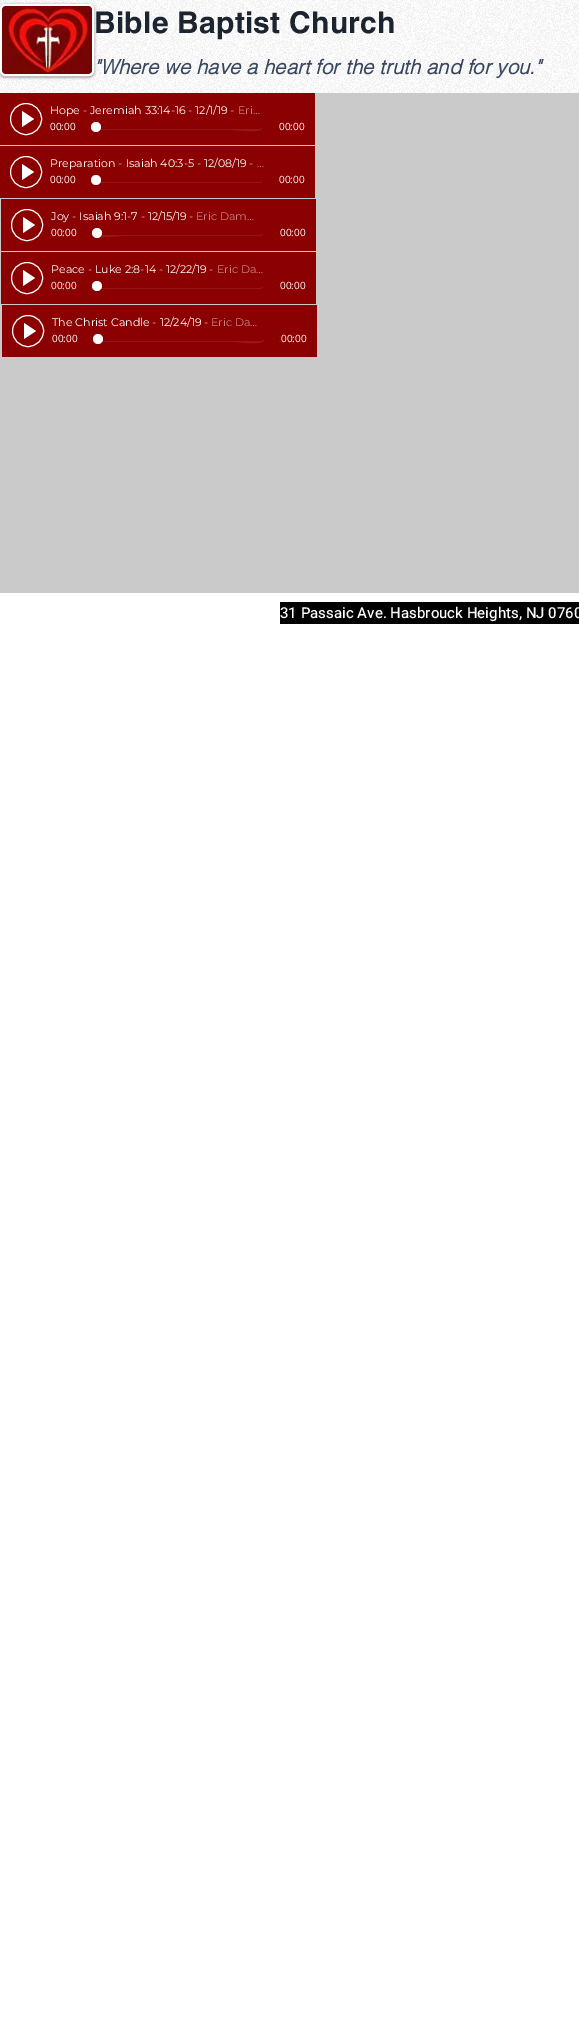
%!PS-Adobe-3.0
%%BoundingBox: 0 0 579 2035
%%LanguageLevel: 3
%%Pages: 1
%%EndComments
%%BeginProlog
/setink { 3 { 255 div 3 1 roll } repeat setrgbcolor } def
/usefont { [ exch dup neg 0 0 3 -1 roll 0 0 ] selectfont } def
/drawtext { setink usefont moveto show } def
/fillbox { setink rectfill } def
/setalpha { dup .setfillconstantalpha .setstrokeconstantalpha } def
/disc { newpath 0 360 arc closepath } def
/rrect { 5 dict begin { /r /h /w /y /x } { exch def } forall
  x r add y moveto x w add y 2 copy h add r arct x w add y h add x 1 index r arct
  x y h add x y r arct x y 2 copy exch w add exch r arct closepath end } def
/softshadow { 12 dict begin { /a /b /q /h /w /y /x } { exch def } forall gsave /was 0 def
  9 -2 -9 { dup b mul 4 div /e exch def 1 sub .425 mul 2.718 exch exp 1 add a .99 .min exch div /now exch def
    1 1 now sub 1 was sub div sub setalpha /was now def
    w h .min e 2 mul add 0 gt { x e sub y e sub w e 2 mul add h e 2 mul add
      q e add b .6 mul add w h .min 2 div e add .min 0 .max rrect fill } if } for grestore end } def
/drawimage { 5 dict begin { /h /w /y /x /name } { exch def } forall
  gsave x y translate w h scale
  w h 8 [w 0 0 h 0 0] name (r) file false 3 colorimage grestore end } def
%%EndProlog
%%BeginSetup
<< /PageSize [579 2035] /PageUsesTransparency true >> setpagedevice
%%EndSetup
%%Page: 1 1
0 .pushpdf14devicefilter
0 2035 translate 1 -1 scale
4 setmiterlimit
0 0 579 2035 255 255 255 fillbox
(assets/img1.rgb) 0 0 579 93 drawimage
0 0 0 setink
0 5 94 72 5 1.5 0.5 softshadow
255 255 255 setink
1 5 92 70 4 rrect gsave fill grestore
2 setlinewidth
stroke
(assets/img2.rgb) 2 6 90 68 drawimage
/helvetica-Bold 30 usefont
28 36 47 setink
94 33 moveto 0.25 0 (Bible Baptist Church) ashow
/helvetica-BoldItalic 20 usefont
57 71 94 setink
94 74 moveto 0.2 0 ("Where we have a heart for the truth and for you.") ashow
0 93 579 500 202 202 202 fillbox
0 93 315 52 139 0 0 fillbox
255 255 255 setink
1 setlinewidth
26 119 15.5 disc stroke
22 127 moveto 22 111 lineto 34 119 lineto closepath fill
(Hope - Jeremiah 33:14-16 - 12/1/19 -) 50 114 /Montserrat-Regular 11 255 255 255 drawtext
(Eri…) 238 114 /Montserrat-Regular 11 197 128 128 drawtext
(00:00) 50 130 /OpenSans-Regular 10 255 255 255 drawtext
(00:00) 279 130 /OpenSans-Regular 10 255 255 255 drawtext
150 23 23 setink
91 127 moveto 91 129 lineto 94 130 lineto 232 130 lineto 238 130 264 134 262 127 curveto 262 128 261 129 260 129 curveto 94 129 lineto 92 129 91 128 91 127 curveto closepath fill
255 255 255 setink
96 127 5 disc fill
0 146 315 52 139 0 0 fillbox
255 255 255 setink
26 172 15.5 disc stroke
22 180 moveto 22 164 lineto 34 172 lineto closepath fill
(Preparation - Isaiah 40:3-5 - 12/08/19 -) 50 167 /Montserrat-Regular 11 255 255 255 drawtext
(…) 257 167 /Montserrat-Regular 11 197 128 128 drawtext
(00:00) 50 183 /OpenSans-Regular 10 255 255 255 drawtext
(00:00) 279 183 /OpenSans-Regular 10 255 255 255 drawtext
150 23 23 setink
91 180 moveto 91 182 92 183 94 183 curveto 260 183 lineto 262 182 lineto 262 180 lineto 262 181 261 182 260 182 curveto 94 182 lineto 92 182 91 181 91 180 curveto closepath fill
255 255 255 setink
96 180 5 disc fill
1 199 315 52 139 0 0 fillbox
255 255 255 setink
27 225 15.5 disc stroke
23 233 moveto 23 217 lineto 35 225 lineto closepath fill
(Joy - Isaiah 9:1-7 - 12/15/19 -) 51 220 /Montserrat-Regular 11 255 255 255 drawtext
(Eric Dam…) 196 220 /Montserrat-Regular 11 197 128 128 drawtext
(00:00) 51 236 /OpenSans-Regular 10 255 255 255 drawtext
(00:00) 280 236 /OpenSans-Regular 10 255 255 255 drawtext
150 23 23 setink
92 233 moveto 90 240 116 236 122 236 curveto 260 236 lineto 263 235 lineto 263 233 lineto 263 234 262 235 260 235 curveto 94 235 lineto 93 235 92 234 92 233 curveto closepath fill
255 255 255 setink
97 233 5 disc fill
1 252 315 52 139 0 0 fillbox
255 255 255 setink
27 278 15.5 disc stroke
23 286 moveto 23 270 lineto 35 278 lineto closepath fill
(Peace - Luke 2:8-14 - 12/22/19 -) 51 273 /Montserrat-Regular 11 255 255 255 drawtext
(Eric Da…) 217 273 /Montserrat-Regular 11 197 128 128 drawtext
(00:00) 51 289 /OpenSans-Regular 10 255 255 255 drawtext
(00:00) 280 289 /OpenSans-Regular 10 255 255 255 drawtext
150 23 23 setink
92 286 moveto 92 288 lineto 94 289 lineto 260 289 lineto 262 289 263 288 263 286 curveto 263 287 262 288 260 288 curveto 94 288 lineto 93 288 92 287 92 286 curveto closepath fill
255 255 255 setink
97 286 5 disc fill
2 305 315 52 139 0 0 fillbox
255 255 255 setink
28 331 15.5 disc stroke
24 339 moveto 24 323 lineto 36 331 lineto closepath fill
(The Christ Candle - 12/24/19 -) 52 326 /Montserrat-Regular 11 255 255 255 drawtext
(Eric Da…) 211 326 /Montserrat-Regular 11 197 128 128 drawtext
(00:00) 52 342 /OpenSans-Regular 10 255 255 255 drawtext
(00:00) 281 342 /OpenSans-Regular 10 255 255 255 drawtext
150 23 23 setink
93 339 moveto 93 341 lineto 96 342 lineto 234 342 lineto 240 342 266 346 264 339 curveto 264 340 263 341 262 341 curveto 96 341 lineto 94 341 93 340 93 339 curveto closepath fill
255 255 255 setink
98 339 5 disc fill
280 602 299 22 0 0 0 fillbox
(31 Passaic Ave. Hasbrouck Heights, NJ 0760) 280 618 /Heebo-Medium 15 255 255 255 drawtext
.poppdf14devicefilter showpage
%%EOF
